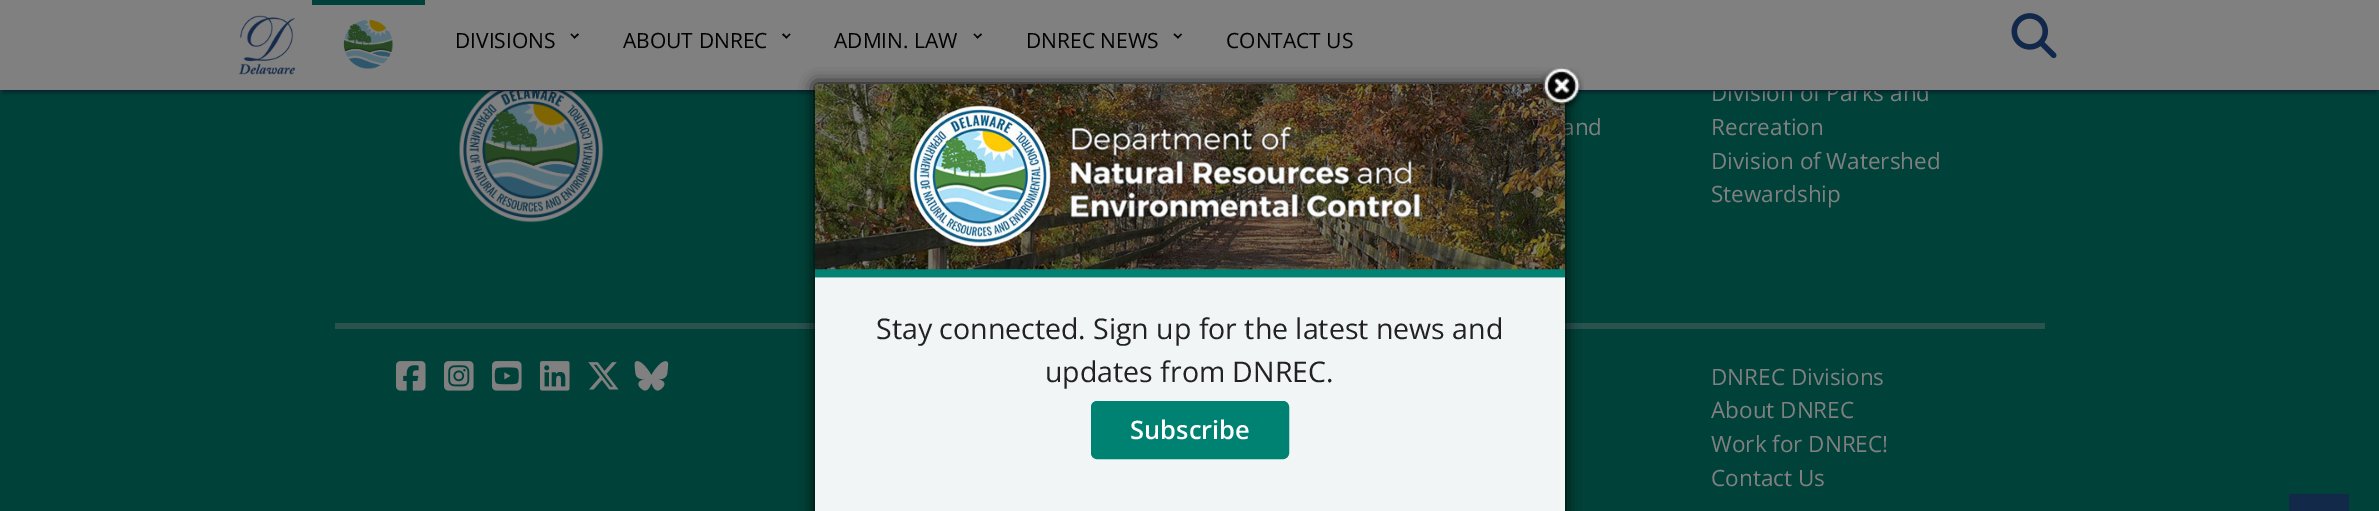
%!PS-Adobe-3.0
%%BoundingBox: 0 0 2379 511
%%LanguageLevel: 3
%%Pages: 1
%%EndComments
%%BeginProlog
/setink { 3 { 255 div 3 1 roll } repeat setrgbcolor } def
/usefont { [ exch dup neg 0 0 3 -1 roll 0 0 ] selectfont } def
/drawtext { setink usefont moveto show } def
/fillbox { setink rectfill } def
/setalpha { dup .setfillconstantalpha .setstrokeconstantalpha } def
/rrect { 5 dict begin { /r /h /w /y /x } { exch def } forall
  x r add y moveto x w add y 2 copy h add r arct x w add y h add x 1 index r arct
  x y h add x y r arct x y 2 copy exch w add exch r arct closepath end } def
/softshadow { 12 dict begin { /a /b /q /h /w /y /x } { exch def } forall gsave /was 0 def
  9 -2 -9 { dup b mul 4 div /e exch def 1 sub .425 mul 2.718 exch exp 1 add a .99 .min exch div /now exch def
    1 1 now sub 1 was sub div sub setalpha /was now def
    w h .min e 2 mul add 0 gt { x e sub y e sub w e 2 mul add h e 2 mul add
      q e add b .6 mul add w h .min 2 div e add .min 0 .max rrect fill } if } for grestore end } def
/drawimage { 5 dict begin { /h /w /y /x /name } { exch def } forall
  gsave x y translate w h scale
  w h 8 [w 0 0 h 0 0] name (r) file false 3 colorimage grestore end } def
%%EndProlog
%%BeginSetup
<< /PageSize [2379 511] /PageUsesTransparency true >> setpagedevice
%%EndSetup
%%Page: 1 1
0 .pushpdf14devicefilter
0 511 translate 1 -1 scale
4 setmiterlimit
0 0 2379 511 0 65 57 fillbox
(assets/img4.rgb) 459 91 145 132 drawimage
(Division of Parks and) 1711 101 /OpenSans-Regular 22.5 128 128 128 drawtext
0 90 2379 1 18 41 74 fillbox
0 0 0 setink
3 9 2373 84 0 1.5 0.3 softshadow
0 0 2379 90 128 128 128 fillbox
312 0 113 5 0 65 57 fillbox
(assets/img1.rgb) 239 15 56 60 drawimage
(assets/img2.rgb) 2011 13 46 46 drawimage
(assets/img3.rgb) 343 19 50 50 drawimage
(DIVISIONS) 455 48 /OpenSans-Regular 21 0 0 0 drawtext
577.5 33.5 moveto 579 34.5 lineto 574.5 38.5 lineto 573.5 37.5 lineto closepath fill
571.5 33.5 moveto 575.5 37.5 lineto 574.5 38.5 lineto 570.5 34.5 lineto closepath fill
(ABOUT DNREC) 623 48 /OpenSans-Regular 21 0 0 0 drawtext
789.5 33.5 moveto 790.5 34.5 lineto 786.5 38.5 lineto 785.5 37.5 lineto closepath fill
783.5 33.5 moveto 787.5 37.5 lineto 786.5 38.5 lineto 782 34.5 lineto closepath fill
(ADMIN. LAW) 834 48 /OpenSans-Regular 21 0 0 0 drawtext
981 33.5 moveto 982 34.5 lineto 977.5 38.5 lineto 976.5 37.5 lineto closepath fill
974.5 33.5 moveto 978.5 37.5 lineto 977.5 38.5 lineto 973.5 34.5 lineto closepath fill
(DNREC NEWS) 1026 48 /OpenSans-Regular 21 0 0 0 drawtext
1181 33.5 moveto 1182 34.5 lineto 1178 38.5 lineto 1177 37.5 lineto closepath fill
1174.5 33.5 moveto 1179 37.5 lineto 1178 38.5 lineto 1173.5 34.5 lineto closepath fill
(CONTACT US) 1226 48 /OpenSans-Regular 21 0 0 0 drawtext
(and) 1562 135 /OpenSans-Regular 22.5 128 128 128 drawtext
(Recreation) 1711 135 /OpenSans-Regular 22.5 128 128 128 drawtext
(Division of Watershed) 1711 169 /OpenSans-Regular 22.5 128 128 128 drawtext
(Stewardship) 1711 202 /OpenSans-Regular 22.5 128 128 128 drawtext
335 323 1710 6 42 83 78 fillbox
(assets/img5.rgb) 396 361 30 30 drawimage
(assets/img6.rgb) 444 361 30 30 drawimage
(assets/img7.rgb) 492 361 30 30 drawimage
(assets/img8.rgb) 540 361 30 30 drawimage
(assets/img9.rgb) 588 362 31 28 drawimage
(assets/img10.rgb) 634 361 35 30 drawimage
(DNREC Divisions) 1711 385 /OpenSans-Regular 22.5 128 128 128 drawtext
(About DNREC) 1711 418 /OpenSans-Regular 22.5 128 128 128 drawtext
(Work for DNREC!) 1711 452 /OpenSans-Regular 22.5 128 128 128 drawtext
(Contact Us) 1711 486 /OpenSans-Regular 22.5 128 128 128 drawtext
2289 494 60 17 18 41 74 fillbox
0 0 0 setink
815 84 750 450 0 7.5 1 softshadow
815 277 750 234 242 245 246 fillbox
(assets/img12.rgb) 815 84 750 194 drawimage
(assets/img11.rgb) 1540 67 44 42 drawimage
(Stay connected. Sign up for the latest news and) 876 339 /OpenSans-Regular 28.5 34 34 34 drawtext
(updates from DNREC.) 1045 382 /OpenSans-Regular 28.5 34 34 34 drawtext
0 130 114 setink
1092 402 196 56 5 rrect gsave fill grestore
2 setlinewidth
stroke
(Subscribe) 1130 439 /OpenSans-SemiBold 25.5 255 255 255 drawtext
.poppdf14devicefilter showpage
%%EOF
